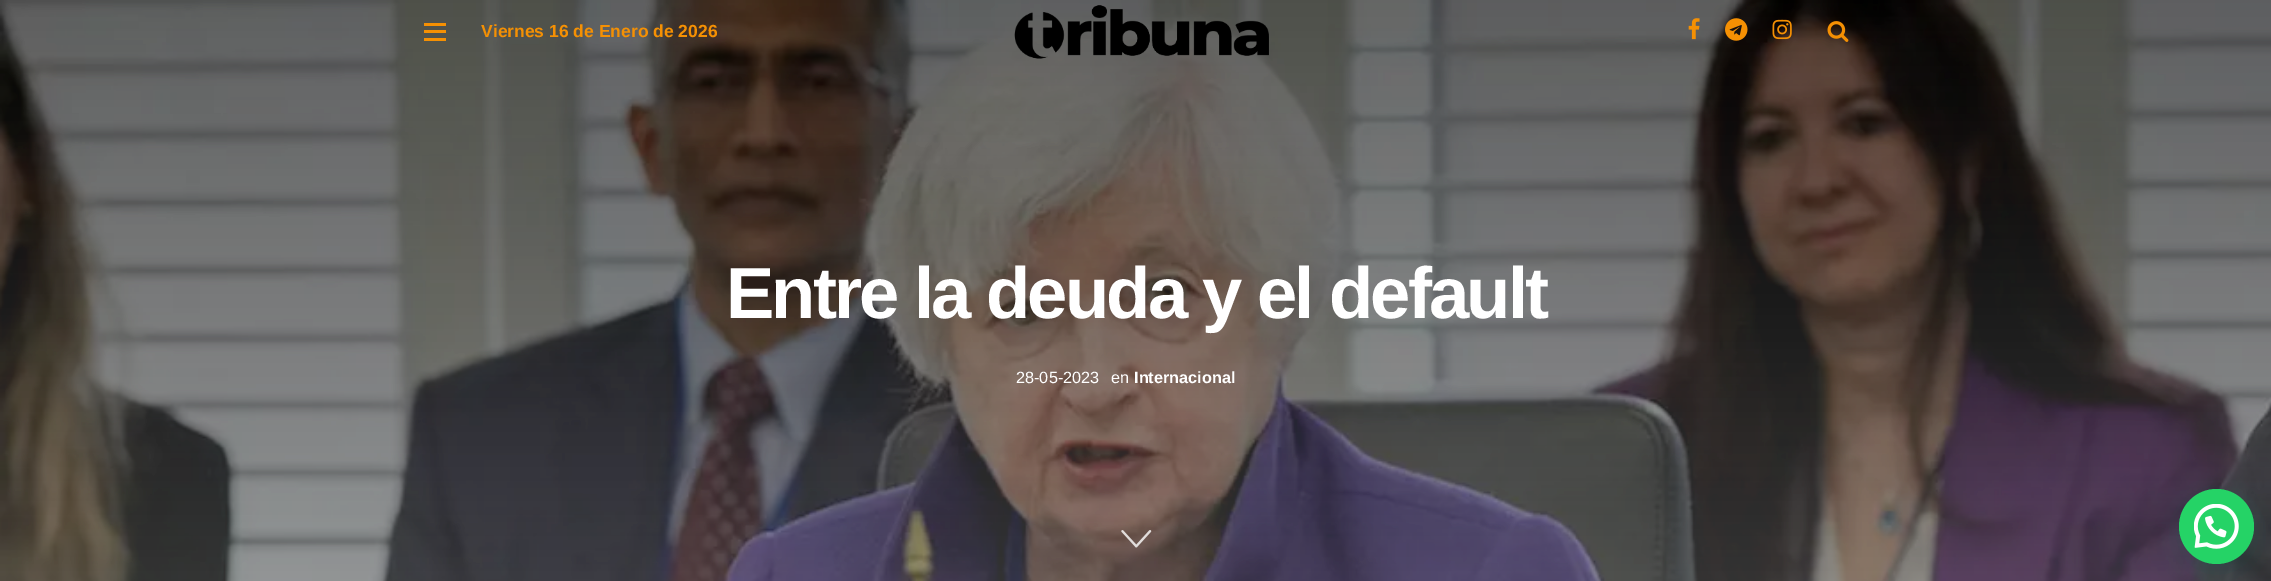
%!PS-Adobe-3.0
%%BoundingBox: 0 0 2271 581
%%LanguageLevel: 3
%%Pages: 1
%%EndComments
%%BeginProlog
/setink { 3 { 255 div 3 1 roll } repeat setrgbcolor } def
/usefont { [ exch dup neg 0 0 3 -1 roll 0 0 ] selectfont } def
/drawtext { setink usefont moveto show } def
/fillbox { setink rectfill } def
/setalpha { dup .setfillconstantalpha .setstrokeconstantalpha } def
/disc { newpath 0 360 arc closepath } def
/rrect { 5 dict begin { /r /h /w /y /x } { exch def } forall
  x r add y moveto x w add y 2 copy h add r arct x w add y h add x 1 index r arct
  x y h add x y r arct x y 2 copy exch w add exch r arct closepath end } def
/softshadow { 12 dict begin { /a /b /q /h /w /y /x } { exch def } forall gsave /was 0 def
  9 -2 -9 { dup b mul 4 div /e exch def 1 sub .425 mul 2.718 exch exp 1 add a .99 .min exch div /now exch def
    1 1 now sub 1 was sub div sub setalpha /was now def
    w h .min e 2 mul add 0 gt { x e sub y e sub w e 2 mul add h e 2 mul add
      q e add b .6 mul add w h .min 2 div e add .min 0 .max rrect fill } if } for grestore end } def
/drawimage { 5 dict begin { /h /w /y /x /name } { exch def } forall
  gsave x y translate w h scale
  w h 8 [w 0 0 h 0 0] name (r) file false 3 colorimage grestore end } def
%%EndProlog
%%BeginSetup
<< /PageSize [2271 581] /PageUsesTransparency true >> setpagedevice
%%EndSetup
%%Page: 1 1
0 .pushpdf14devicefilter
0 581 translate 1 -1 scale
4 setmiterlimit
0 0 2271 581 255 255 255 fillbox
gsave 0 0 moveto 2271 0 lineto 2271 581 lineto 0 581 lineto closepath clip newpath
<< /ShadingType 2 /ColorSpace /DeviceRGB /Coords [1136 0 1136 581] /Extend [true true] /Function << /FunctionType 2 /Domain [0 1] /C0 [0 0 0] /C1 [0.329 0.329 0.329] /N 1 >> >> shfill grestore
(assets/img6.rgb) 0 0 2271 581 drawimage
424 23 22 3 245 144 3 fillbox
424 30 22 3 245 144 3 fillbox
424 38 22 3 245 144 3 fillbox
(Viernes 16 de Enero de 2026) 481 37 /LiberationSans-Bold 17.5 245 144 3 drawtext
(assets/img1.rgb) 1014 5 255 54 drawimage
(assets/img2.rgb) 1688 18 12 22 drawimage
(assets/img3.rgb) 1725 18 23 23 drawimage
(assets/img4.rgb) 1772 19 20 21 drawimage
(assets/img5.rgb) 1827 21 22 21 drawimage
/LiberationSans-Bold 72.5 usefont
255 255 255 setink
726 318 moveto -2.9 0 (Entre la deuda y el default) ashow
(28-05-2023) 1016 383 /LiberationSans-Regular 16.25 255 255 255 drawtext
(en) 1111 383 /LiberationSans-Regular 16.25 255 255 255 drawtext
(Internacional) 1134 383 /LiberationSans-Bold 16.25 255 255 255 drawtext
(assets/img7.rgb) 1121 530 31 18 drawimage
7 94 84 setink
2180 496 75 75 37.5 15 0.24 softshadow
37 211 102 setink
2216.5 526.5 37.5 disc fill
(assets/img8.rgb) 2194 504 45 45 drawimage
.poppdf14devicefilter showpage
%%EOF
